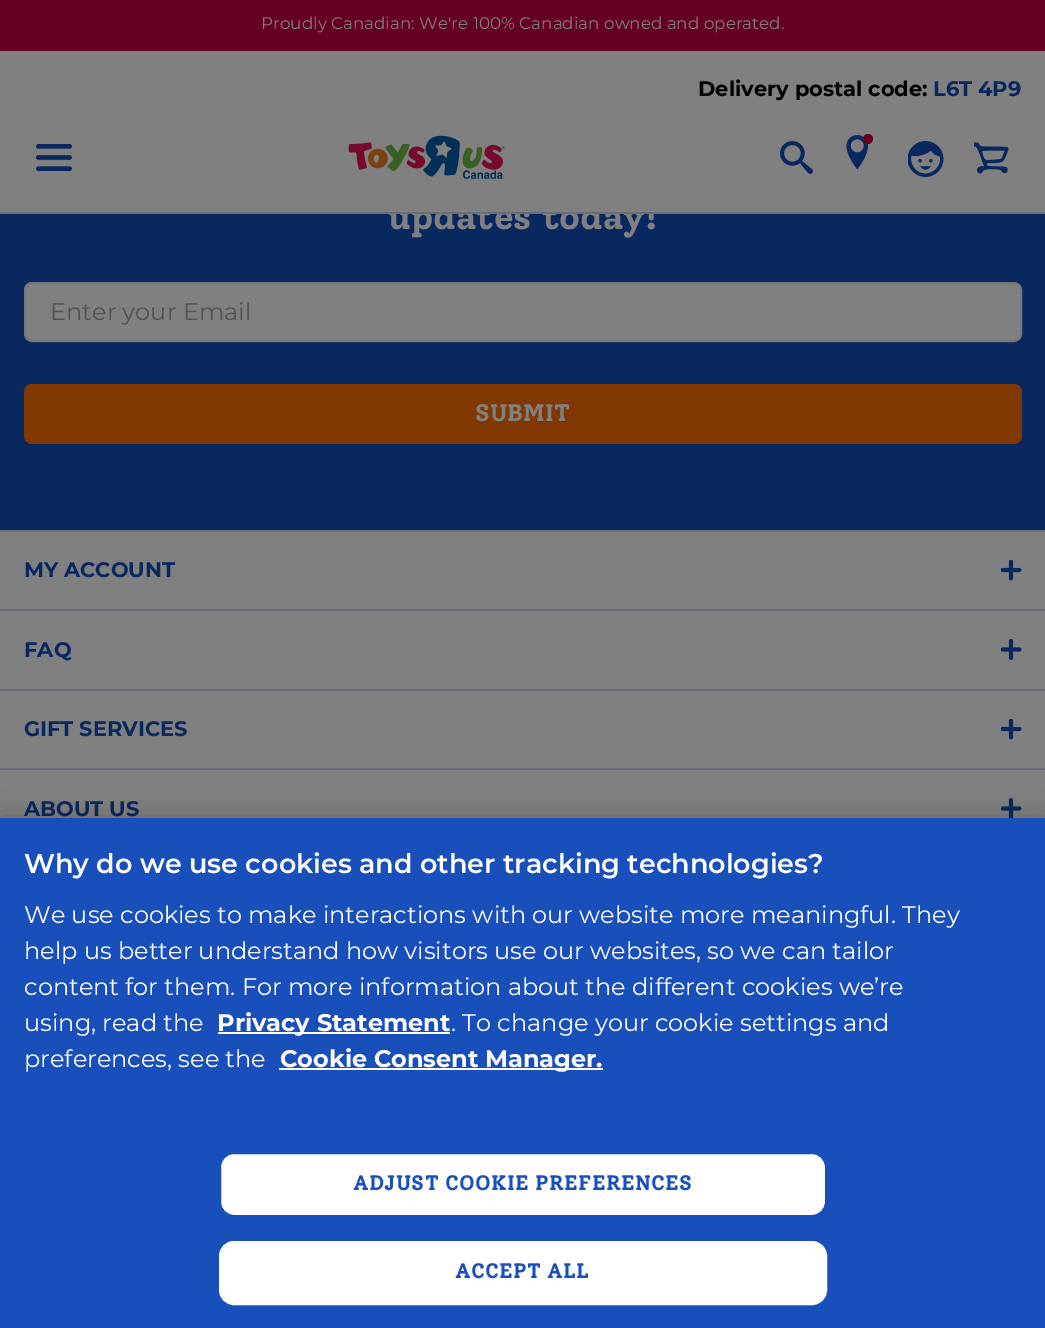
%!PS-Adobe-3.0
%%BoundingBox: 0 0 1045 1328
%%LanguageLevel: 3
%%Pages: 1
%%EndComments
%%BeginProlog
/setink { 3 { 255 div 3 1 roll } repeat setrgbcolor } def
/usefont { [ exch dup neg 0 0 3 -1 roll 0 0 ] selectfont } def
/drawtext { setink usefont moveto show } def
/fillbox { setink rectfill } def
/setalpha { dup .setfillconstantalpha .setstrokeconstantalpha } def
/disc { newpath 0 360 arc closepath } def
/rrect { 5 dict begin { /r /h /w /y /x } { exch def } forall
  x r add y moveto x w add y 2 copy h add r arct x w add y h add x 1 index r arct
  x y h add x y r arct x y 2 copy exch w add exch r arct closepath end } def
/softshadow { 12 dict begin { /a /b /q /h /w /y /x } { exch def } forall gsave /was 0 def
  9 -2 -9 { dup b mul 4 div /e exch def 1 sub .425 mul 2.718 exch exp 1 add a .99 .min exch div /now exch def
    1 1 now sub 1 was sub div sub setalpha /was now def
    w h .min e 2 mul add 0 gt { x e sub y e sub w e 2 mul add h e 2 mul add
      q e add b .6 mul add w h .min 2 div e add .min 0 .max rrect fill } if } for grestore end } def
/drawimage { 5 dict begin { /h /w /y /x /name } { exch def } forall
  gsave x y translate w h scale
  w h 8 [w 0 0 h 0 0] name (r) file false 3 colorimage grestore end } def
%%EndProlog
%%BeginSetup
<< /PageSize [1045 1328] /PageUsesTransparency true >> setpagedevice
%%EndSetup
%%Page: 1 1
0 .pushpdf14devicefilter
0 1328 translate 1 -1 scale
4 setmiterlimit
0 0 1045 1328 128 128 128 fillbox
0 0 1045 51 102 0 34 fillbox
(Proudly Canadian: We're 100% Canadian owned and operated.) 261 29 /Montserrat-Regular 16.8 128 128 128 drawtext
0 214 1045 316 8 40 95 fillbox
(updates today!) 388 229 /Solway-Bold 36 128 128 128 drawtext
0 212 1045 2 104 110 121 fillbox
(Delivery postal code:) 698 96 /Montserrat-Bold 21 0 0 0 drawtext
(L6T 4P9) 933 96 /Montserrat-Bold 21 8 40 95 drawtext
(assets/img1.rgb) 36 144 36 27 drawimage
(assets/img2.rgb) 348 135 157 44 drawimage
(assets/img3.rgb) 780 141 33 33 drawimage
(assets/img4.rgb) 846 135 22 35 drawimage
102 0 34 setink
868 139 5 disc fill
(assets/img5.rgb) 908 141 36 36 drawimage
(assets/img6.rgb) 974 142 35 32 drawimage
128 128 128 setink
25 283 996 58 7 rrect gsave fill grestore
116 119 124 setink
2 setlinewidth
stroke
(Enter your Email) 50 320 /Montserrat-Regular 24 83 83 83 drawtext
128 56 0 setink
24 384 998 60 8 rrect fill
(SUBMIT) 475 421 /Solway-Bold 24 128 128 128 drawtext
0 530 1045 2 104 110 121 fillbox
0 609 1045 2 104 110 121 fillbox
(MY ACCOUNT) 24 577 /Montserrat-Bold 21 8 40 95 drawtext
(assets/img7.rgb) 1001 560 21 21 drawimage
0 689 1045 2 104 110 121 fillbox
(FAQ) 24 657 /Montserrat-Bold 21 8 40 95 drawtext
(assets/img8.rgb) 1001 639 21 21 drawimage
0 768 1045 2 104 110 121 fillbox
(GIFT SERVICES) 24 736 /Montserrat-Bold 21 8 40 95 drawtext
(assets/img7.rgb) 1001 719 21 21 drawimage
(ABOUT US) 24 816 /Montserrat-Bold 21 8 40 95 drawtext
(assets/img9.rgb) 1001 798 21 20 drawimage
0 0 0 setink
0 818 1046 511 0 13.5 0.2 softshadow
0 818 1045 510 24 79 187 fillbox
(Why do we use cookies and other tracking technologies?) 24 873 /Montserrat-SemiBold 27 255 255 255 drawtext
(We use cookies to make interactions with our website more meaningful. They) 24 923 /Montserrat-Regular 24 255 255 255 drawtext
(help us better understand how visitors use our websites, so we can tailor) 24 959 /Montserrat-Regular 24 255 255 255 drawtext
(content for them. For more information about the different cookies we’re) 24 995 /Montserrat-Regular 24 255 255 255 drawtext
(using, read the) 24 1031 /Montserrat-Regular 24 255 255 255 drawtext
218 1032 232 2 255 255 255 fillbox
(Privacy Statement) 217 1031 /Montserrat-Bold 24 255 255 255 drawtext
(. To change your cookie settings and) 451 1031 /Montserrat-Regular 24 255 255 255 drawtext
(preferences, see the) 24 1067 /Montserrat-Regular 24 255 255 255 drawtext
279 1068 324 2 255 255 255 fillbox
(Cookie Consent Manager.) 280 1067 /Montserrat-Bold 24 255 255 255 drawtext
220 1153 606 63 14 rrect gsave fill grestore
24 79 187 setink
stroke
/Solway-Bold 21 usefont
353 1190 moveto 0.2 0 (ADJUST COOKIE PREFERENCES) ashow
255 255 255 setink
220 1242 606 62 14 rrect gsave fill grestore
stroke
24 79 187 setink
455 1278 moveto 0.2 0 (ACCEPT ALL) ashow
.poppdf14devicefilter showpage
%%EOF
